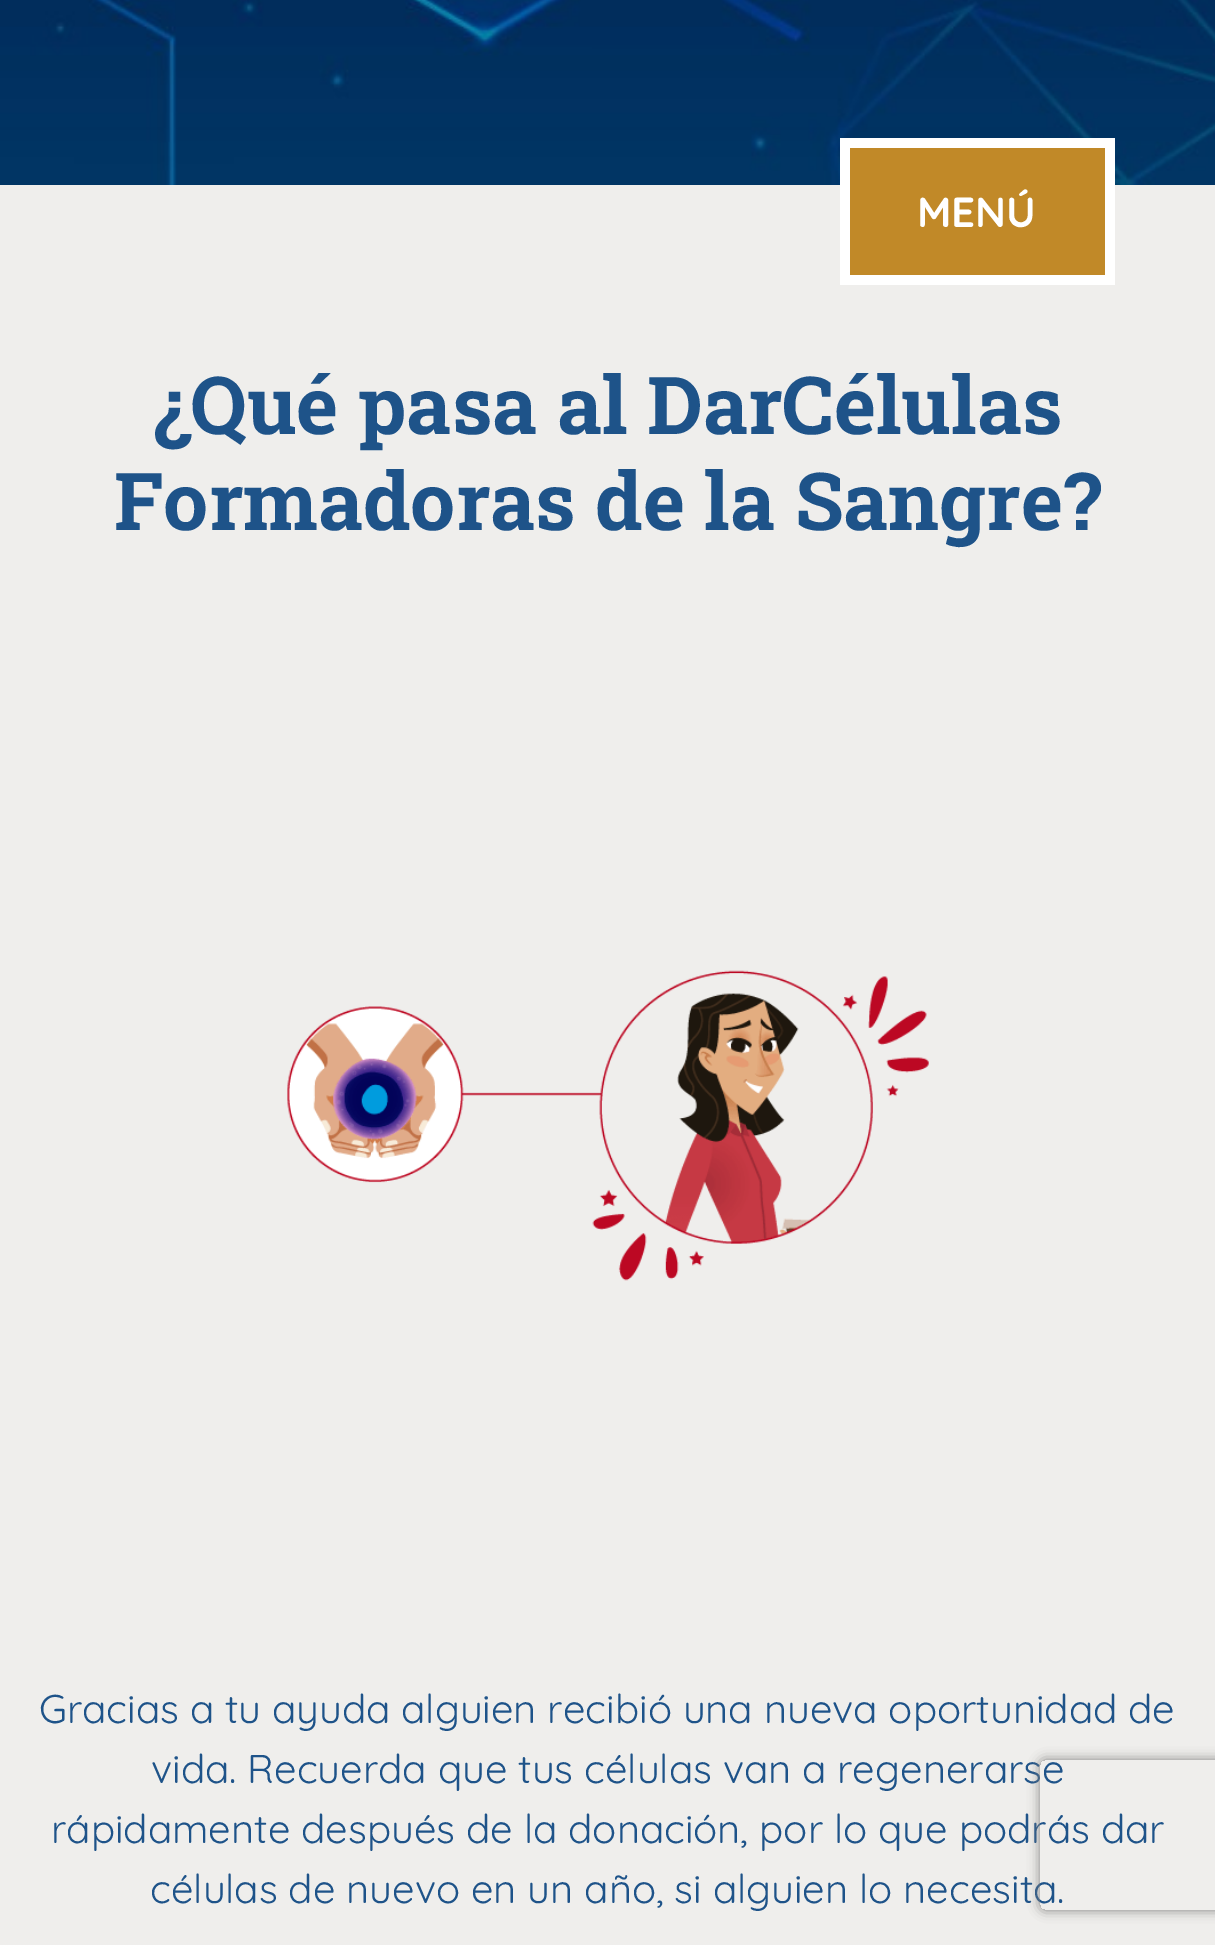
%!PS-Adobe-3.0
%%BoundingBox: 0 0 1215 1945
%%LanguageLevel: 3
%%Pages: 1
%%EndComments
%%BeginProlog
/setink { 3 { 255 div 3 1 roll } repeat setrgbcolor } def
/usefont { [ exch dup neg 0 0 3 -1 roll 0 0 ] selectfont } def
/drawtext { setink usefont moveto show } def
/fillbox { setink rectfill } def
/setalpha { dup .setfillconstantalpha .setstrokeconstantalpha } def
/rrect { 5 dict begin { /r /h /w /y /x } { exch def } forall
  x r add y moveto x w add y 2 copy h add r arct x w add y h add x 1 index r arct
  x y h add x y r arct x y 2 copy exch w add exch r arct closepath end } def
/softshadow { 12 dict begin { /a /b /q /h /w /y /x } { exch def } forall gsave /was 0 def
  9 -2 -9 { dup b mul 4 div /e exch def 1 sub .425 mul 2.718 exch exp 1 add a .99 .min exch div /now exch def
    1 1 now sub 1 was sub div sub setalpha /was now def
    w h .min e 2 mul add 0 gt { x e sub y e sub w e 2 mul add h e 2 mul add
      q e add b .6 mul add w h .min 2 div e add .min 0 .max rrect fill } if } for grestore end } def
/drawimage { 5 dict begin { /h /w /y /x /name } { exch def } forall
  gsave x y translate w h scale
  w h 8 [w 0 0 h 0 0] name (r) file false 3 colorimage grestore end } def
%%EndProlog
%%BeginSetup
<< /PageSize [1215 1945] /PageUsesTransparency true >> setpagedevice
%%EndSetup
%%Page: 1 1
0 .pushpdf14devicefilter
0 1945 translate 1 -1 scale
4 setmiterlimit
0 0 1215 1945 255 255 255 fillbox
(assets/img1.rgb) 0 0 1215 185 drawimage
0 185 1215 1760 239 238 236 fillbox
850 148 255 127 193 137 40 fillbox
840 148 10 127 255 255 255 fillbox
840 138 265 10 255 255 255 fillbox
(MENÚ) 917 227 /Quicksand-Bold 42 255 255 255 drawtext
840 275 265 10 255 255 255 fillbox
1105 138 10 147 255 255 255 fillbox
(¿Qué pasa al DarCélulas) 153 434 /RobotoSlab-Bold 80 30 83 137 drawtext
(Formadoras de la Sangre?) 114 530 /RobotoSlab-Bold 80 30 83 137 drawtext
(assets/img2.rgb) 287 970 642 311 drawimage
(Gracias a tu ayuda alguien recibió una nueva oportunidad de) 39 1723 /Quicksand-Regular 40 30 83 137 drawtext
(vida. Recuerda que tus células van a regenerarse) 151 1783 /Quicksand-Regular 40 30 83 137 drawtext
(rápidamente después de la donación, por lo que podrás dar) 51 1843 /Quicksand-Regular 40 30 83 137 drawtext
(células de nuevo en un año, si alguien lo necesita.) 150 1903 /Quicksand-Regular 40 30 83 137 drawtext
gsave
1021 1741 moveto 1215 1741 lineto 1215 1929 lineto 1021 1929 lineto closepath 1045 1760 moveto 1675 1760 lineto 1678 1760 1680 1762 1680 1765 curveto 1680 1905 lineto 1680 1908 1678 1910 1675 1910 curveto 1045 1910 lineto 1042 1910 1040 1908 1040 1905 curveto 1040 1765 lineto 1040 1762 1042 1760 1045 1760 curveto closepath eoclip newpath
128 128 128 setink
1040 1760 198 150 5 6 1 softshadow
grestore
.poppdf14devicefilter showpage
%%EOF
